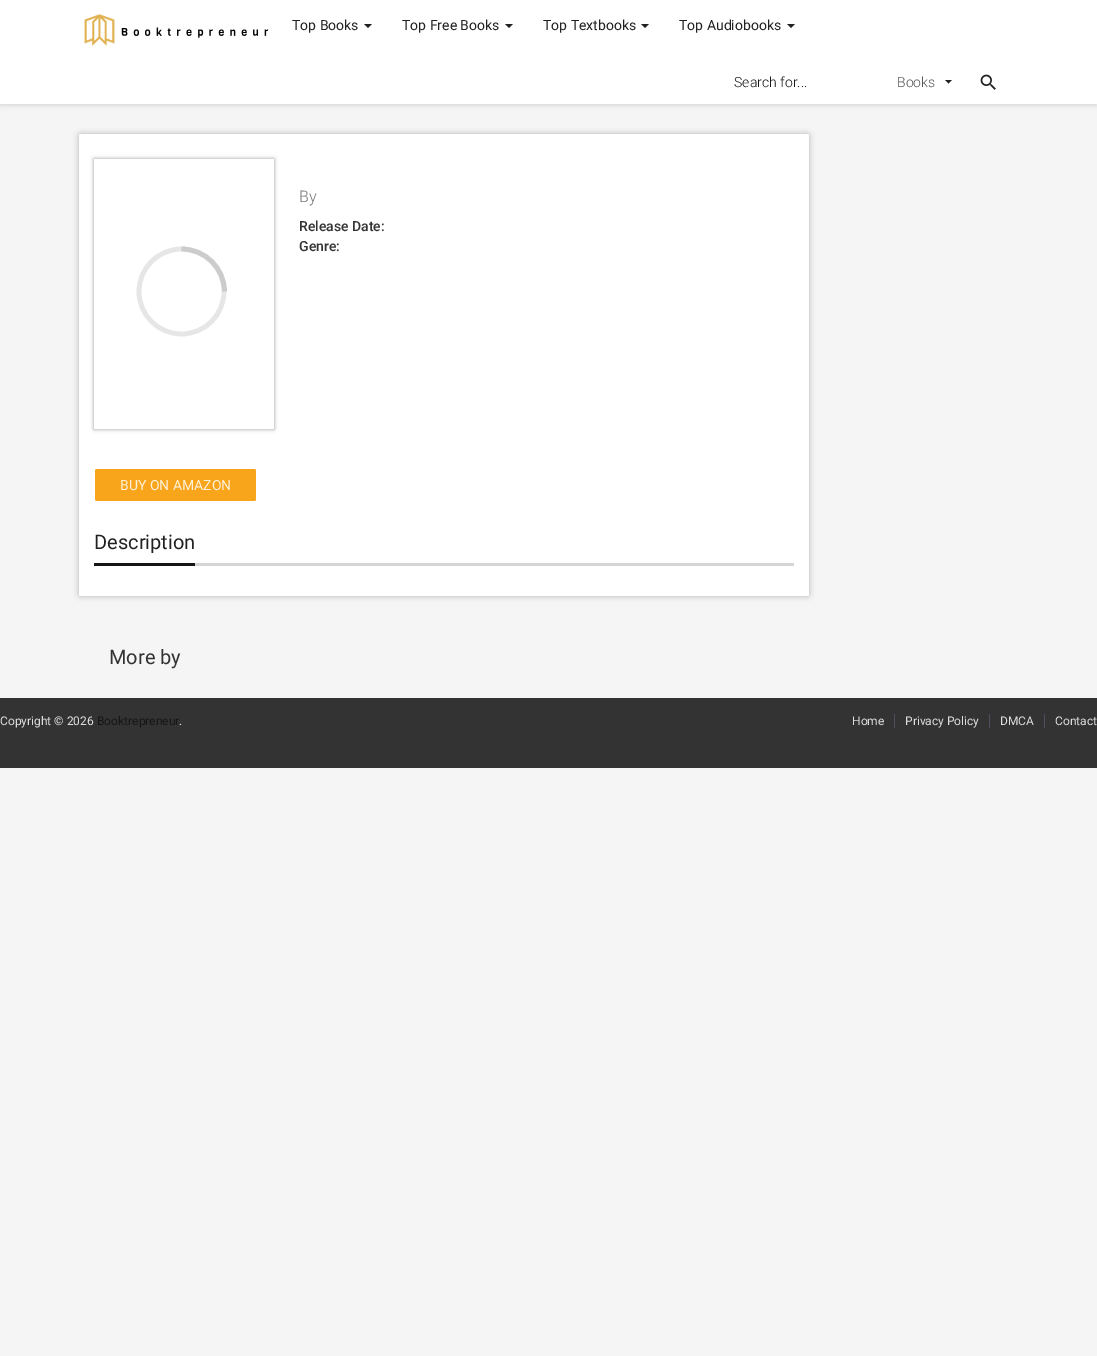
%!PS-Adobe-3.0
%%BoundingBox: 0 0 1097 1356
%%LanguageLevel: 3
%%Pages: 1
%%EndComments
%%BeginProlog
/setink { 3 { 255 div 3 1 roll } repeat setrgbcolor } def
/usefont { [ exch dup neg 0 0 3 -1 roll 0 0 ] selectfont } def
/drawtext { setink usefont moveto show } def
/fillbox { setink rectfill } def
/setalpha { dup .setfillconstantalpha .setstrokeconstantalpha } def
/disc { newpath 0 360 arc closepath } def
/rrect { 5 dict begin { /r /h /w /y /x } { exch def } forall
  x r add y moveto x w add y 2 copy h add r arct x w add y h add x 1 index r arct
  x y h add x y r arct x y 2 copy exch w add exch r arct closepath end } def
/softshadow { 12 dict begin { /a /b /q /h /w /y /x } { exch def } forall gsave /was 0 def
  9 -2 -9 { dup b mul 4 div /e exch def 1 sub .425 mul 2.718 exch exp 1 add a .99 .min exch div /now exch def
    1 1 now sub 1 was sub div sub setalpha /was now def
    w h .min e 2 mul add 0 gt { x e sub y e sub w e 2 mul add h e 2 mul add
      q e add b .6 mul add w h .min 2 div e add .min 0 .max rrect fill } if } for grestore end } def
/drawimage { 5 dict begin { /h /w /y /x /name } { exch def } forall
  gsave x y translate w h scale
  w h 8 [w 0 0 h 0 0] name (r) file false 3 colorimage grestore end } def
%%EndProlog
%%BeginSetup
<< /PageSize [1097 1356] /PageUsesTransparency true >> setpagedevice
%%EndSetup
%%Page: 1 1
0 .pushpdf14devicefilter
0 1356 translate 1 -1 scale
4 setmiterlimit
0 0 1097 1356 245 245 245 fillbox
0 0 0 setink
0 2 1097 104 0 2 0.1 softshadow
0 0 1097 104 255 255 255 fillbox
(assets/img1.rgb) 84 14 185 32 drawimage
(Top Books) 292 30 /Roboto-Regular 14 33 33 33 drawtext
364 24 moveto 372 24 lineto 368 28 lineto closepath fill
(Top Free Books) 402 30 /Roboto-Regular 14 33 33 33 drawtext
505 24 moveto 513 24 lineto 509 28 lineto closepath fill
(Top Textbooks) 543 30 /Roboto-Regular 14 33 33 33 drawtext
641 24 moveto 649 24 lineto 645 28 lineto closepath fill
(Top Audiobooks) 679 30 /Roboto-Regular 14 33 33 33 drawtext
787 24 moveto 795 24 lineto 791 28 lineto closepath fill
(Search for...) 734 87 /Roboto-Light 14 23 22 22 drawtext
(Books) 897 87 /Roboto-Light 14 85 85 85 drawtext
33 33 33 setink
945 80 moveto 952 80 lineto 948.5 83.5 lineto closepath fill
(assets/img2.rgb) 980 74 16 16 drawimage
0 0 0 setink
79 134 730 462 2 3 0.27 softshadow
255 255 255 setink
79 134 730 462 2 rrect fill
gsave
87 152 moveto 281 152 lineto 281 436 lineto 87 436 lineto closepath 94 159 moveto 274 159 lineto 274 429 lineto 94 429 lineto closepath eoclip newpath
0 0 0 setink
94 159 180 270 0 2 0.4 softshadow
grestore
230 230 230 setink
4.7 setlinewidth
181.5 291.5 42.5 disc stroke
204 204 204 setink
224.5 291.5 moveto 224.5 268 205 249 181.5 249 curveto stroke
(By) 299 202 /Roboto-Light 16 119 119 119 drawtext
(Release Date:) 299 231 /Roboto-Medium 14 51 51 51 drawtext
(Genre:) 299 251 /Roboto-Medium 14 51 51 51 drawtext
249 165 27 setink
95 469 161 32 2 rrect fill
(BUY ON AMAZON) 120 490 /Roboto-Regular 14 254 241 219 drawtext
195 563 599 3 213 213 213 fillbox
94 563 101 3 23 22 22 fillbox
(Description) 94 549 /Roboto-Regular 20 33 33 33 drawtext
(More by) 109 664 /Roboto-Regular 20 51 51 51 drawtext
0 698 1097 70 51 51 51 fillbox
(Copyright © 2026) 0 725 /Roboto-Regular 12 221 221 221 drawtext
(Booktrepreneur) 97 725 /Roboto-Regular 12 23 22 22 drawtext
(.) 179 725 /Roboto-Regular 12 221 221 221 drawtext
(Home) 852 725 /Roboto-Regular 12 221 221 221 drawtext
894 714 1 14 77 81 95 fillbox
(Privacy Policy) 905 725 /Roboto-Regular 12 221 221 221 drawtext
989 714 1 14 77 81 95 fillbox
(DMCA) 1000 725 /Roboto-Regular 12 221 221 221 drawtext
1044 714 1 14 77 81 95 fillbox
(Contact) 1055 725 /Roboto-Regular 12 221 221 221 drawtext
.poppdf14devicefilter showpage
%%EOF
